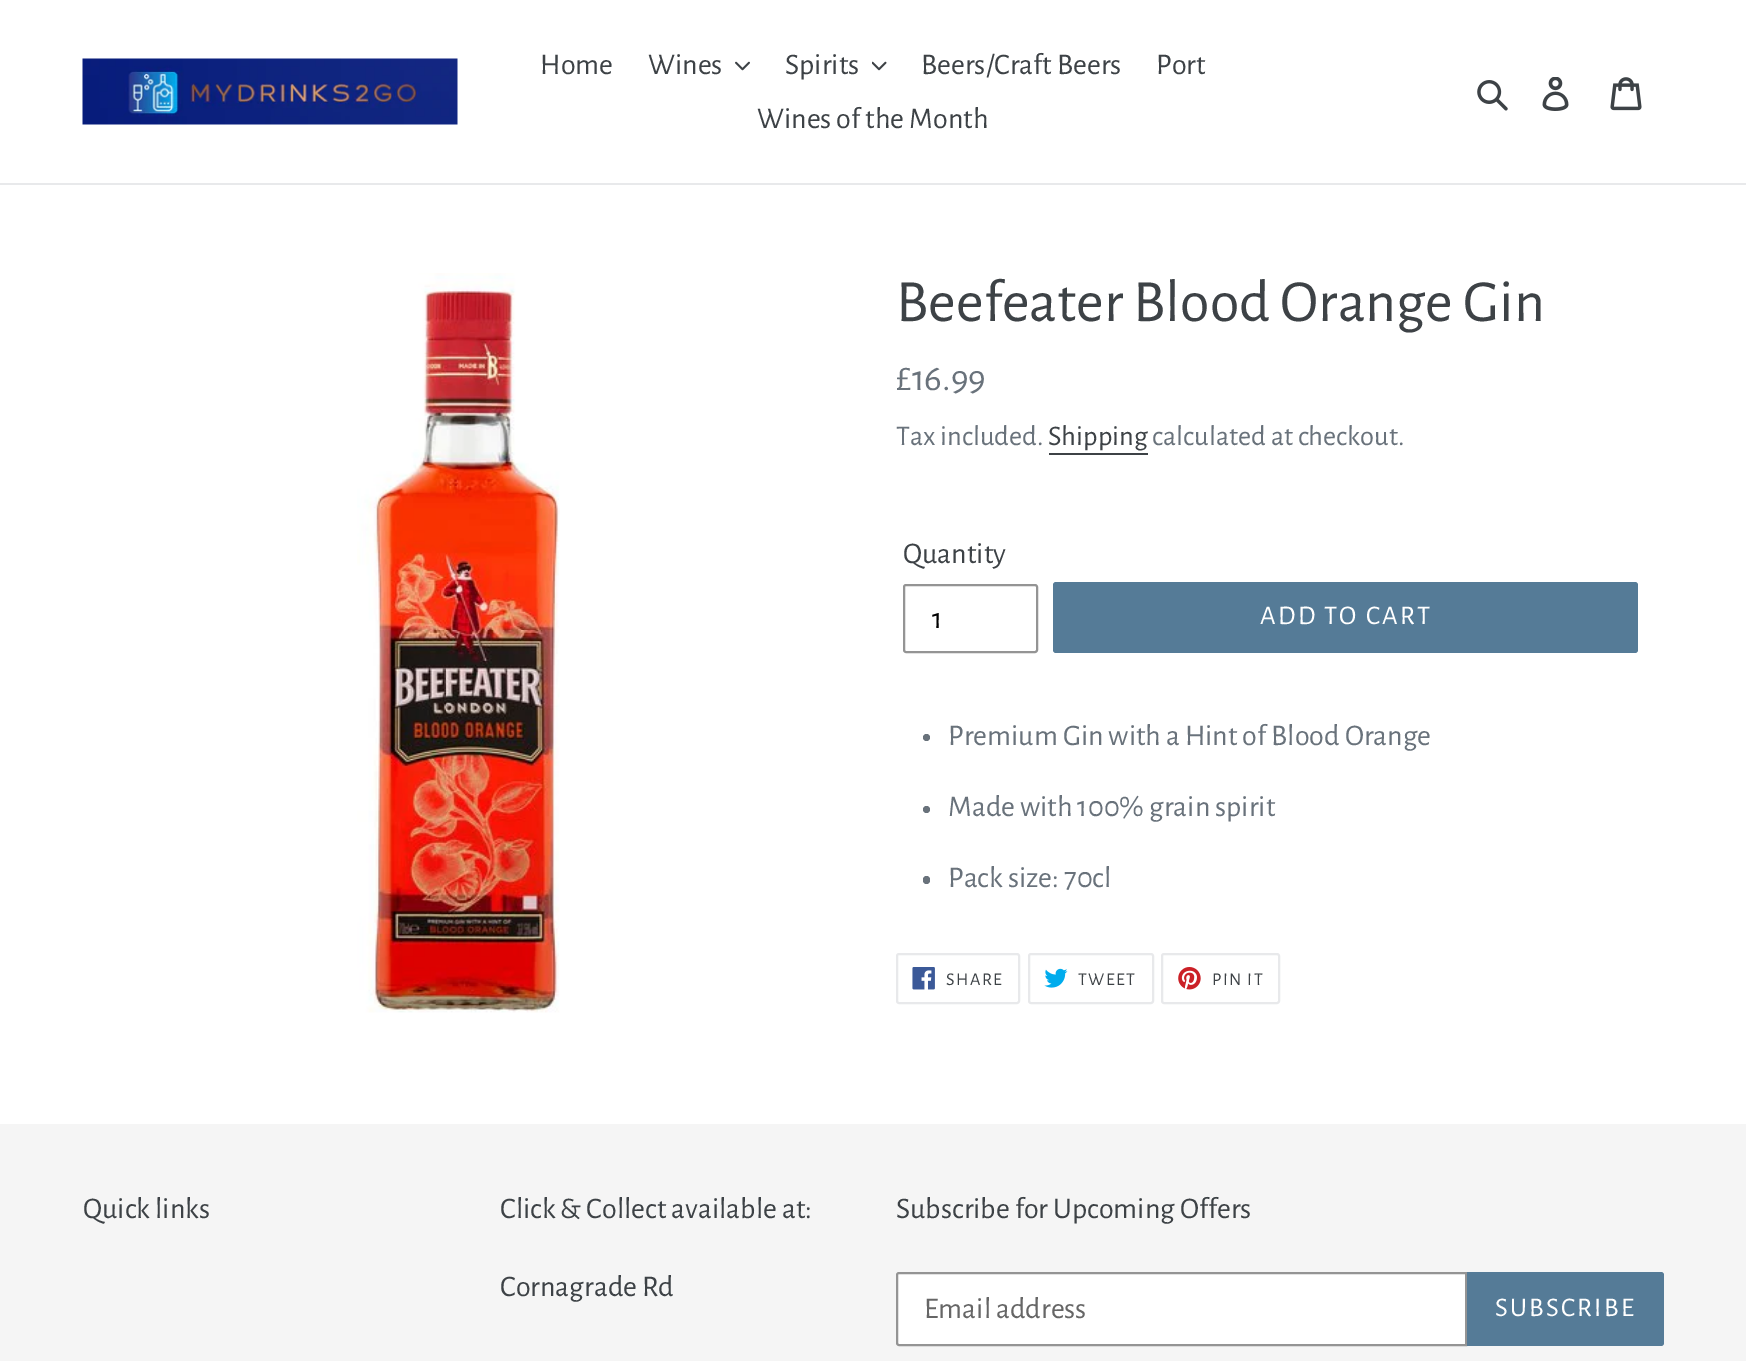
%!PS-Adobe-3.0
%%BoundingBox: 0 0 1746 1361
%%LanguageLevel: 3
%%Pages: 1
%%EndComments
%%BeginProlog
/setink { 3 { 255 div 3 1 roll } repeat setrgbcolor } def
/usefont { [ exch dup neg 0 0 3 -1 roll 0 0 ] selectfont } def
/drawtext { setink usefont moveto show } def
/fillbox { setink rectfill } def
/disc { newpath 0 360 arc closepath } def
/rrect { 5 dict begin { /r /h /w /y /x } { exch def } forall
  x r add y moveto x w add y 2 copy h add r arct x w add y h add x 1 index r arct
  x y h add x y r arct x y 2 copy exch w add exch r arct closepath end } def
/drawimage { 5 dict begin { /h /w /y /x /name } { exch def } forall
  gsave x y translate w h scale
  w h 8 [w 0 0 h 0 0] name (r) file false 3 colorimage grestore end } def
%%EndProlog
%%BeginSetup
<< /PageSize [1746 1361] >> setpagedevice
%%EndSetup
%%Page: 1 1
0 1361 translate 1 -1 scale
4 setmiterlimit
0 0 1746 1361 255 255 255 fillbox
0 183 1746 2 232 233 235 fillbox
(assets/img1.rgb) 82 58 376 67 drawimage
(Home) 540 74 /AlegreyaSans-Regular 30 61 66 70 drawtext
(Wines) 648 74 /AlegreyaSans-Regular 30 61 66 70 drawtext
(assets/img2.rgb) 735 61 15 10 drawimage
(Spirits) 785 74 /AlegreyaSans-Regular 30 61 66 70 drawtext
(assets/img3.rgb) 872 61 15 10 drawimage
(Beers/Craft Beers) 921 74 /AlegreyaSans-Regular 30 61 66 70 drawtext
(Port) 1156 74 /AlegreyaSans-Regular 30 61 66 70 drawtext
(Wines of the Month) 757 128 /AlegreyaSans-Regular 30 61 66 70 drawtext
(assets/img4.rgb) 1477 80 31 31 drawimage
(assets/img5.rgb) 1542 77 27 34 drawimage
(assets/img6.rgb) 1610 77 32 34 drawimage
(assets/img7.rgb) 357 273 203 740 drawimage
(Beefeater Blood Orange Gin) 896 321 /AlegreyaSans-Regular 60 61 66 70 drawtext
(£16.99) 896 390 /AlegreyaSans-Regular 37.5 105 114 123 drawtext
(Tax included.) 896 445 /AlegreyaSans-Regular 28.5 105 114 123 drawtext
(Shipping) 1048 445 /AlegreyaSans-Regular 28.5 61 66 70 drawtext
1049 453 99 2 61 66 70 fillbox
(calculated at checkout.) 1152 445 /AlegreyaSans-Regular 28.5 105 114 123 drawtext
(Quantity) 903 563 /AlegreyaSans-Regular 30 61 66 70 drawtext
148 148 148 setink
2 setlinewidth
904 585 133 67 2 rrect stroke
(1) 932 628 /AlegreyaSans-Regular 30 0 0 0 drawtext
85 123 151 setink
1053 582 585 71 3 rrect fill
/AlegreyaSans-Regular 27 usefont
255 255 255 setink
1260 624 moveto 2.25 0 (ADD TO CART) ashow
105 114 123 setink
926.5 737.5 3.5 disc fill
(Premium Gin with a Hint of Blood Orange) 948 745 /AlegreyaSans-Regular 30 105 114 123 drawtext
926.5 809.5 3.5 disc fill
(Made with 100% grain spirit) 948 816 /AlegreyaSans-Regular 30 105 114 123 drawtext
923 876 7 8 3.5 rrect fill
(Pack size: 70cl) 948 887 /AlegreyaSans-Regular 30 105 114 123 drawtext
232 233 235 setink
897 954 122 49 2 rrect stroke
(assets/img8.rgb) 912 967 23 23 drawimage
/AlegreyaSans-Regular 18 usefont
61 66 70 setink
946 985 moveto 1.5 0 (SHARE) ashow
232 233 235 setink
1029 954 124 49 2 rrect stroke
(assets/img9.rgb) 1044 968 24 20 drawimage
61 66 70 setink
1078 985 moveto 1.5 0 (TWEET) ashow
232 233 235 setink
1162 954 117 49 2 rrect stroke
(assets/img10.rgb) 1178 967 23 23 drawimage
61 66 70 setink
1212 985 moveto 1.5 0 (PIN IT) ashow
0 1124 1746 237 245 245 245 fillbox
(Quick links) 83 1218 /AlegreyaSans-Regular 30 61 66 70 drawtext
(Click & Collect available at:) 500 1218 /AlegreyaSans-Regular 30 61 66 70 drawtext
(Cornagrade Rd) 500 1296 /AlegreyaSans-Regular 30 61 66 70 drawtext
(Subscribe for Upcoming Offers) 896 1218 /AlegreyaSans-Regular 30 61 66 70 drawtext
255 255 255 setink
899 1273 moveto 1466 1273 lineto 1466 1345 lineto 899 1345 lineto 898 1345 897 1344 897 1343 curveto 897 1275 lineto 897 1274 898 1273 899 1273 curveto closepath gsave fill grestore
148 148 148 setink
stroke
(Email address) 924 1318 /AlegreyaSans-Regular 30 102 102 102 drawtext
85 123 151 setink
1467 1272 moveto 1661 1272 lineto 1662.5 1272 1664 1273.5 1664 1275 curveto 1664 1343 lineto 1664 1344.5 1662.5 1346 1661 1346 curveto 1467 1346 lineto closepath fill
/AlegreyaSans-Regular 27 usefont
255 255 255 setink
1495 1316 moveto 2.25 0 (SUBSCRIBE) ashow
showpage
%%EOF
